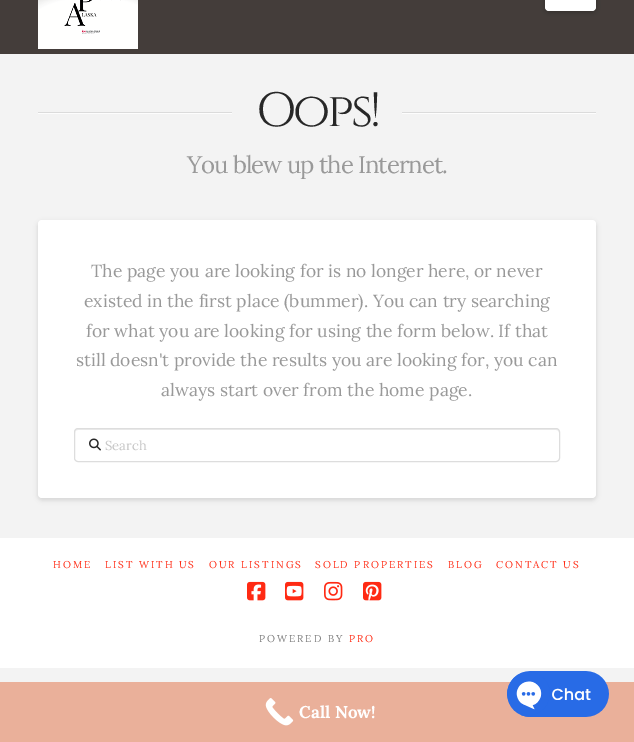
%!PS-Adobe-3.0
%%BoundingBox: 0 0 634 742
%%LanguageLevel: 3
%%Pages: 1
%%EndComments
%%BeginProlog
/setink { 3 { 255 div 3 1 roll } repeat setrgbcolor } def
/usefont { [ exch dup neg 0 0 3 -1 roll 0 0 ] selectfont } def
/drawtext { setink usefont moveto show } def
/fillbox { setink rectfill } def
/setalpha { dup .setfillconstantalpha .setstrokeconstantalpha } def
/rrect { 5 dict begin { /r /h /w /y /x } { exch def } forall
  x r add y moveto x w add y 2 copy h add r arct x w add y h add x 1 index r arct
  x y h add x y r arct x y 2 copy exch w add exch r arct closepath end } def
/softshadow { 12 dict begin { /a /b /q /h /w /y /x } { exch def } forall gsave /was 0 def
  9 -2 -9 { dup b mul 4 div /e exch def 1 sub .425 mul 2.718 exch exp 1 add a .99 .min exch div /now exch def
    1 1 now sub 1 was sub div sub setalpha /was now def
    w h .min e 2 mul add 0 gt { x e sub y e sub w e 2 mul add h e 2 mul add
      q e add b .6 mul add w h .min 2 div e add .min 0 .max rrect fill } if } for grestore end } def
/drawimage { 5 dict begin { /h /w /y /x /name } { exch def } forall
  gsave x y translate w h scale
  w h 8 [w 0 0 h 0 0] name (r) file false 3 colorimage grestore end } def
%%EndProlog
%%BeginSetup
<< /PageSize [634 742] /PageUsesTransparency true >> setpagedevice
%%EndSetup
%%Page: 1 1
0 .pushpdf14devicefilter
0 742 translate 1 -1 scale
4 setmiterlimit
0 0 634 742 243 243 243 fillbox
0 0 634 54 68 61 58 fillbox
(assets/img1.rgb) 38 0 100 49 drawimage
0 0 0 setink
545 -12 51 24 4 2.5 0.25 softshadow
255 255 255 setink
545 -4 51 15 4 rrect fill
38 113 194 1 253 253 253 fillbox
38 112 194 1 219 219 219 fillbox
/Cinzel-Regular 48 usefont
39 39 39 setink
256 126 moveto -3 0 (Oops!) ashow
402 113 194 1 253 253 253 fillbox
402 112 194 1 219 219 219 fillbox
/Lora-Regular 24 usefont
153 153 153 setink
187 173 moveto -1 0 (You blew up the Internet.) ashow
0 0 0 setink
38 222 558 278 4 2.5 0.13 softshadow
255 255 255 setink
38 220 558 278 4 rrect fill
(The page you are looking for is no longer here, or never) 91 277 /Lora-Regular 17.5 153 153 153 drawtext
(existed in the first place \(bummer\). You can try searching) 84 307 /Lora-Regular 17.5 153 153 153 drawtext
(for what you are looking for using the form below. If that) 86 337 /Lora-Regular 17.5 153 153 153 drawtext
(still doesn't provide the results you are looking for, you can) 76 366 /Lora-Regular 17.5 153 153 153 drawtext
(always start over from the home page.) 161 396 /Lora-Regular 17.5 153 153 153 drawtext
236 236 236 setink
78 430 moveto 556 430 lineto 558 430 559 431 559 433 curveto 559 432 lineto 559 430 558 429 556 429 curveto 78 429 lineto 76 429 75 430 75 432 curveto 75 433 lineto 75 431 76 430 78 430 curveto closepath fill
221 221 221 setink
74.5 428.5 485 33 3.5 rrect stroke
(assets/img2.rgb) 89 438 12 13 drawimage
(Search) 105 450 /Lora-Regular 13 197 197 197 drawtext
0 538 634 130 255 255 255 fillbox
/Lora-Regular 10 usefont
255 42 19 setink
53 568 moveto 2 0 (HOME) ashow
105 568 moveto 2 0 (LIST WITH US) ashow
209 568 moveto 2 0 (OUR LISTINGS) ashow
315 568 moveto 2 0 (SOLD PROPERTIES) ashow
448 568 moveto 2 0 (BLOG) ashow
496 568 moveto 2 0 (CONTACT US) ashow
(assets/img3.rgb) 247 581 19 20 drawimage
(assets/img4.rgb) 285 581 19 20 drawimage
(assets/img5.rgb) 324 581 19 20 drawimage
(assets/img6.rgb) 363 581 19 20 drawimage
122 122 122 setink
259 642 moveto 2 0 (POWERED BY) ashow
255 42 19 setink
349 642 moveto 2 0 (PRO) ashow
0 682 634 60 234 176 154 fillbox
(assets/img7.rgb) 265 698 29 28 drawimage
(Call Now!) 299 718 /Lora-Bold 17 255 255 255 drawtext
(assets/img8.rgb) 507 671 102 46 drawimage
.poppdf14devicefilter showpage
%%EOF
